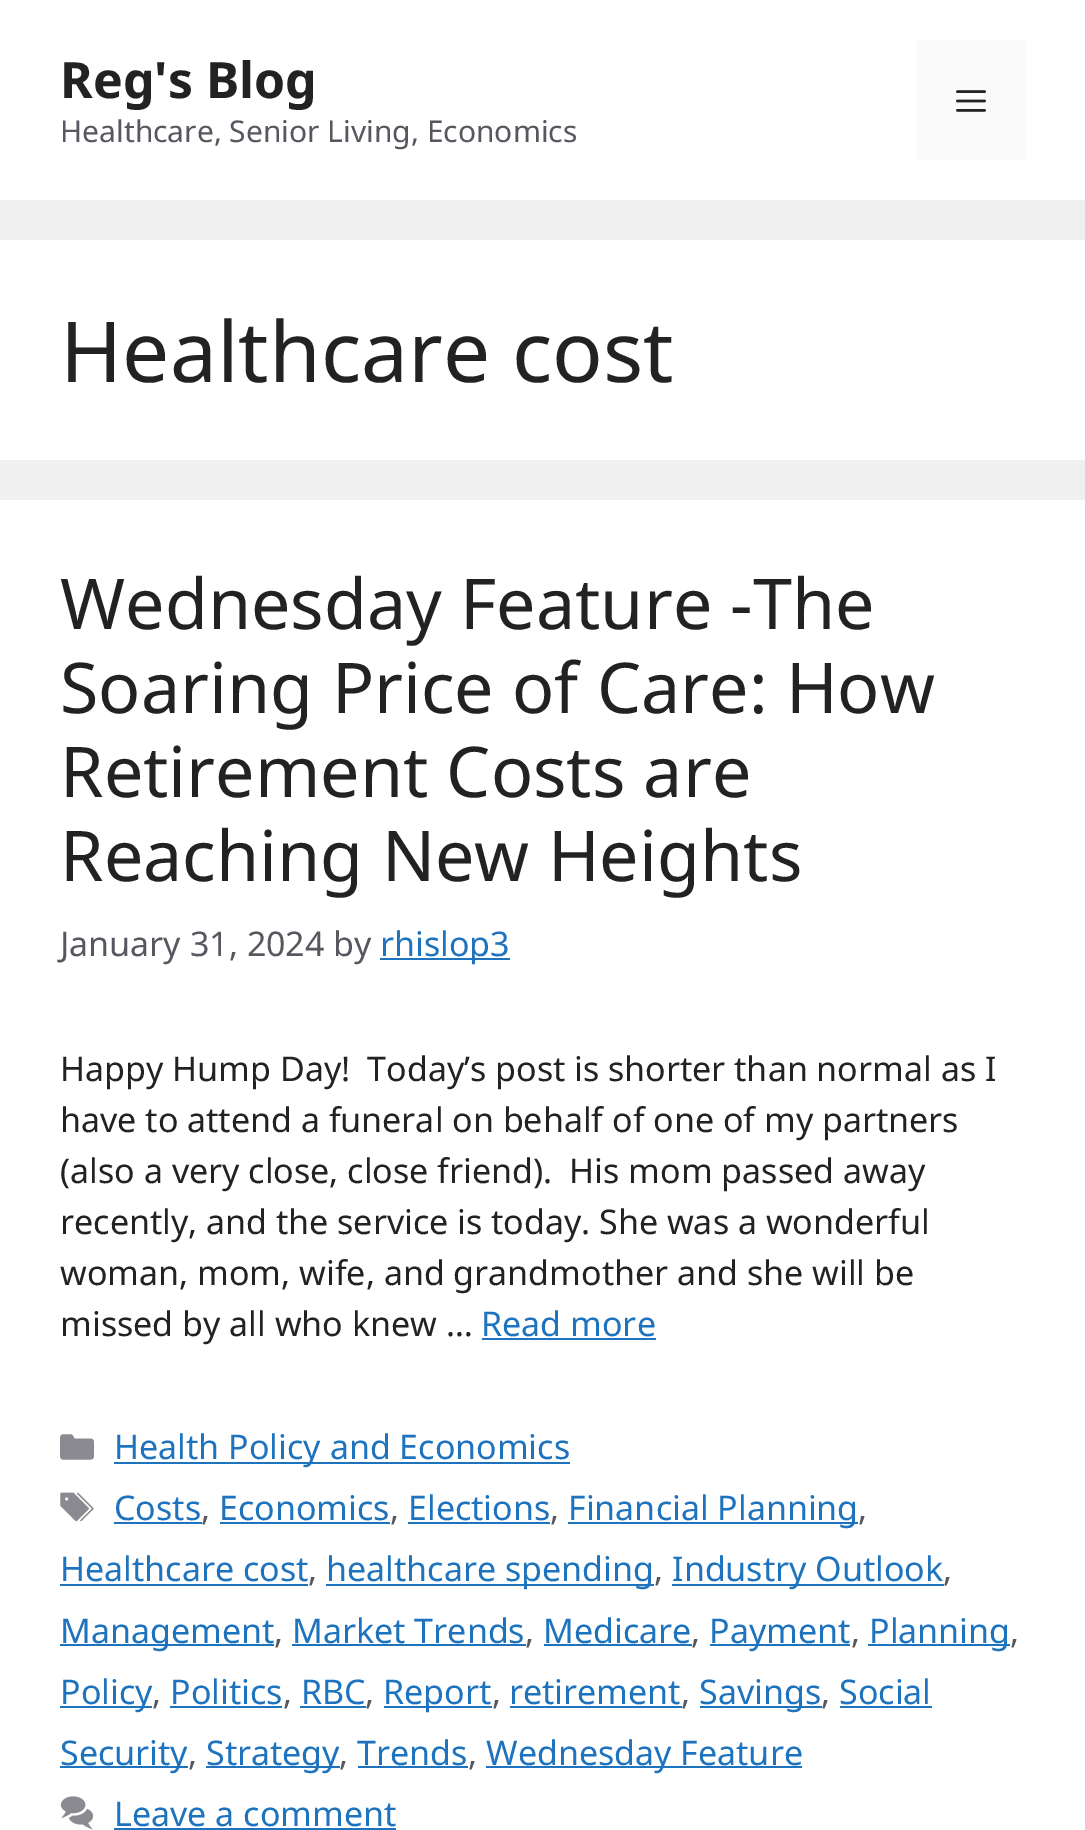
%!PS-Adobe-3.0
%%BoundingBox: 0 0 1085 1830
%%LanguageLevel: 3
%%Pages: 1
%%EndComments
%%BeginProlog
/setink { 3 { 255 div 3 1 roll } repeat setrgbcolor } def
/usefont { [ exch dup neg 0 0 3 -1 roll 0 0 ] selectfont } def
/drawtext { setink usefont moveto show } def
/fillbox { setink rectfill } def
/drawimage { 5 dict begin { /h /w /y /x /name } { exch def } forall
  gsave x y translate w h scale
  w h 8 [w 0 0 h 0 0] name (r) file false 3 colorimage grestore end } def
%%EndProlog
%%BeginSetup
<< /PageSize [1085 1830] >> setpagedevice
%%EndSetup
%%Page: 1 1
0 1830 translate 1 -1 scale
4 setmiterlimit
0 0 1085 1830 240 240 240 fillbox
0 0 1085 200 255 255 255 fillbox
(Reg's Blog) 60 98 /NotoSans-Bold 50 34 34 34 drawtext
(Healthcare, Senior Living, Economics) 60 142 /NotoSans-Regular 30 87 87 96 drawtext
916 40 110 120 250 250 250 fillbox
(assets/img1.rgb) 956 90 30 22 drawimage
0 240 1085 220 255 255 255 fillbox
(Healthcare cost) 60 382 /NotoSans-Regular 84 34 34 34 drawtext
0 500 1085 1330 255 255 255 fillbox
(Wednesday Feature -The) 60 629 /NotoSans-Regular 70 34 34 34 drawtext
(Soaring Price of Care: How) 60 713 /NotoSans-Regular 70 34 34 34 drawtext
(Retirement Costs are) 60 797 /NotoSans-Regular 70 34 34 34 drawtext
(Reaching New Heights) 60 881 /NotoSans-Regular 70 34 34 34 drawtext
(January 31, 2024 by) 60 956 /NotoSans-Regular 34 87 87 96 drawtext
380 958 130 2 30 115 190 fillbox
(rhislop3) 380 956 /NotoSans-Regular 34 30 115 190 drawtext
(Happy Hump Day! Today’s post is shorter than normal as I) 60 1081 /NotoSans-Regular 34 34 34 34 drawtext
(have to attend a funeral on behalf of one of my partners) 60 1132 /NotoSans-Regular 34 34 34 34 drawtext
(\(also a very close, close friend\). His mom passed away) 60 1183 /NotoSans-Regular 34 34 34 34 drawtext
(recently, and the service is today. She was a wonderful) 60 1234 /NotoSans-Regular 34 34 34 34 drawtext
(woman, mom, wife, and grandmother and she will be) 60 1285 /NotoSans-Regular 34 34 34 34 drawtext
(missed by all who knew …) 60 1336 /NotoSans-Regular 34 34 34 34 drawtext
(Read more) 481 1336 /NotoSans-Regular 34 30 115 190 drawtext
482 1338 174 2 30 115 190 fillbox
(assets/img2.rgb) 60 1434 34 26 drawimage
114 1462 456 2 30 115 190 fillbox
(Health Policy and Economics) 114 1459 /NotoSans-Regular 34 30 115 190 drawtext
(assets/img3.rgb) 60 1492 34 30 drawimage
(Costs) 114 1520 /NotoSans-Regular 34 30 115 190 drawtext
114 1522 88 2 30 115 190 fillbox
(,) 201 1520 /NotoSans-Regular 34 87 87 96 drawtext
(Economics) 219 1520 /NotoSans-Regular 34 30 115 190 drawtext
220 1522 170 2 30 115 190 fillbox
(,) 390 1520 /NotoSans-Regular 34 87 87 96 drawtext
(Elections) 408 1520 /NotoSans-Regular 34 30 115 190 drawtext
408 1522 142 2 30 115 190 fillbox
(,) 550 1520 /NotoSans-Regular 34 87 87 96 drawtext
568 1522 290 2 30 115 190 fillbox
(Financial Planning) 568 1520 /NotoSans-Regular 34 30 115 190 drawtext
(,) 858 1520 /NotoSans-Regular 34 87 87 96 drawtext
(Healthcare cost) 60 1581 /NotoSans-Regular 34 30 115 190 drawtext
60 1584 248 2 30 115 190 fillbox
(,) 308 1581 /NotoSans-Regular 34 87 87 96 drawtext
326 1584 328 2 30 115 190 fillbox
(healthcare spending) 326 1581 /NotoSans-Regular 34 30 115 190 drawtext
(,) 654 1581 /NotoSans-Regular 34 87 87 96 drawtext
672 1584 272 2 30 115 190 fillbox
(Industry Outlook) 672 1581 /NotoSans-Regular 34 30 115 190 drawtext
(,) 943 1581 /NotoSans-Regular 34 87 87 96 drawtext
60 1644 214 2 30 115 190 fillbox
(Management) 60 1643 /NotoSans-Regular 34 30 115 190 drawtext
(,) 274 1643 /NotoSans-Regular 34 87 87 96 drawtext
(Market Trends) 292 1643 /NotoSans-Regular 34 30 115 190 drawtext
292 1644 234 2 30 115 190 fillbox
(,) 525 1643 /NotoSans-Regular 34 87 87 96 drawtext
(Medicare) 543 1643 /NotoSans-Regular 34 30 115 190 drawtext
544 1644 148 2 30 115 190 fillbox
(,) 691 1643 /NotoSans-Regular 34 87 87 96 drawtext
710 1644 140 2 30 115 190 fillbox
(Payment) 709 1643 /NotoSans-Regular 34 30 115 190 drawtext
(,) 851 1643 /NotoSans-Regular 34 87 87 96 drawtext
868 1644 142 2 30 115 190 fillbox
(Planning) 869 1643 /NotoSans-Regular 34 30 115 190 drawtext
(,) 1010 1643 /NotoSans-Regular 34 87 87 96 drawtext
60 1706 92 2 30 115 190 fillbox
(Policy) 60 1704 /NotoSans-Regular 34 30 115 190 drawtext
(,) 152 1704 /NotoSans-Regular 34 87 87 96 drawtext
(Politics) 170 1704 /NotoSans-Regular 34 30 115 190 drawtext
170 1706 112 2 30 115 190 fillbox
(,) 283 1704 /NotoSans-Regular 34 87 87 96 drawtext
(RBC) 301 1704 /NotoSans-Regular 34 30 115 190 drawtext
300 1706 66 2 30 115 190 fillbox
(,) 365 1704 /NotoSans-Regular 34 87 87 96 drawtext
384 1706 108 2 30 115 190 fillbox
(Report) 383 1704 /NotoSans-Regular 34 30 115 190 drawtext
(,) 492 1704 /NotoSans-Regular 34 87 87 96 drawtext
(retirement) 509 1704 /NotoSans-Regular 34 30 115 190 drawtext
510 1706 172 2 30 115 190 fillbox
(,) 681 1704 /NotoSans-Regular 34 87 87 96 drawtext
700 1706 122 2 30 115 190 fillbox
(Savings) 699 1704 /NotoSans-Regular 34 30 115 190 drawtext
(,) 821 1704 /NotoSans-Regular 34 87 87 96 drawtext
(Social) 839 1704 /NotoSans-Regular 34 30 115 190 drawtext
840 1706 92 2 30 115 190 fillbox
60 1766 128 2 30 115 190 fillbox
(Security) 60 1765 /NotoSans-Regular 34 30 115 190 drawtext
(,) 188 1765 /NotoSans-Regular 34 87 87 96 drawtext
206 1766 134 2 30 115 190 fillbox
(Strategy) 206 1765 /NotoSans-Regular 34 30 115 190 drawtext
(,) 339 1765 /NotoSans-Regular 34 87 87 96 drawtext
(Trends) 357 1765 /NotoSans-Regular 34 30 115 190 drawtext
358 1766 110 2 30 115 190 fillbox
(,) 468 1765 /NotoSans-Regular 34 87 87 96 drawtext
486 1766 316 2 30 115 190 fillbox
(Wednesday Feature) 486 1765 /NotoSans-Regular 34 30 115 190 drawtext
(assets/img4.rgb) 60 1796 34 34 drawimage
(Leave a comment) 114 1826 /NotoSans-Regular 34 30 115 190 drawtext
114 1828 282 2 30 115 190 fillbox
showpage
%%EOF
